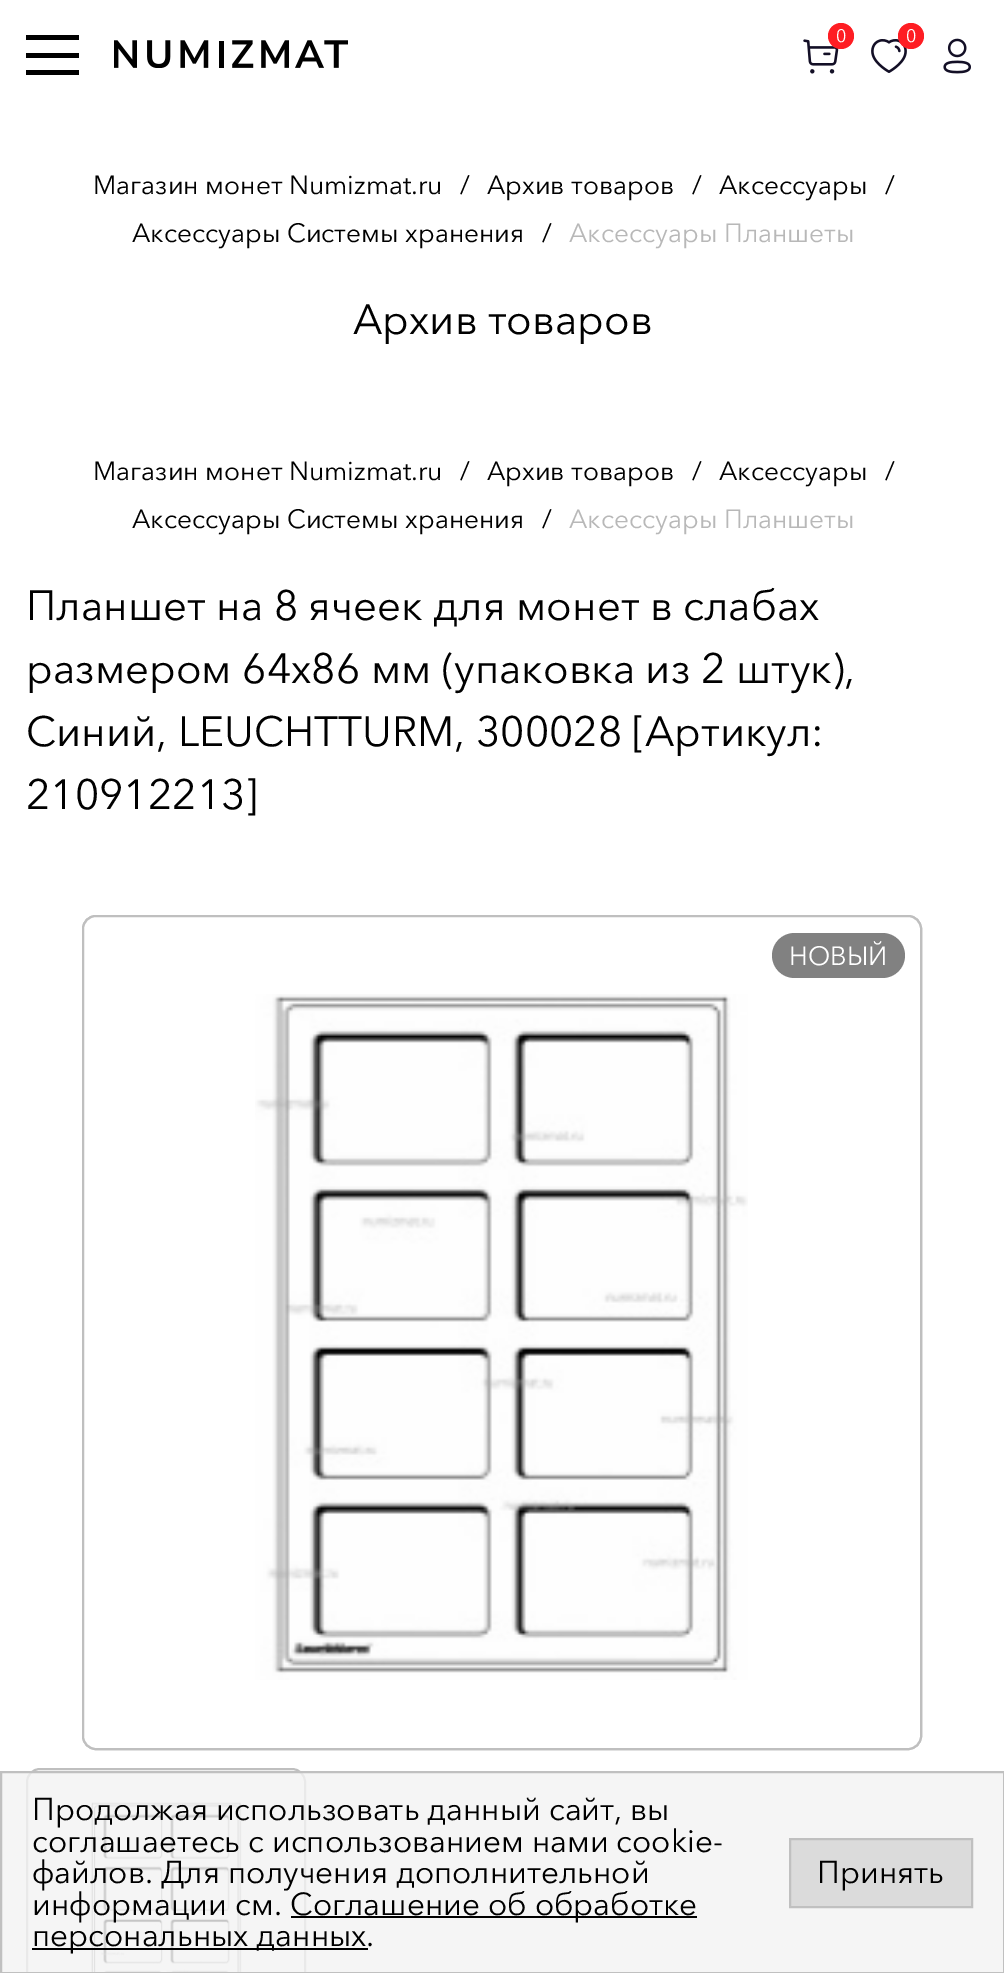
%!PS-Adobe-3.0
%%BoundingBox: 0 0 1004 1973
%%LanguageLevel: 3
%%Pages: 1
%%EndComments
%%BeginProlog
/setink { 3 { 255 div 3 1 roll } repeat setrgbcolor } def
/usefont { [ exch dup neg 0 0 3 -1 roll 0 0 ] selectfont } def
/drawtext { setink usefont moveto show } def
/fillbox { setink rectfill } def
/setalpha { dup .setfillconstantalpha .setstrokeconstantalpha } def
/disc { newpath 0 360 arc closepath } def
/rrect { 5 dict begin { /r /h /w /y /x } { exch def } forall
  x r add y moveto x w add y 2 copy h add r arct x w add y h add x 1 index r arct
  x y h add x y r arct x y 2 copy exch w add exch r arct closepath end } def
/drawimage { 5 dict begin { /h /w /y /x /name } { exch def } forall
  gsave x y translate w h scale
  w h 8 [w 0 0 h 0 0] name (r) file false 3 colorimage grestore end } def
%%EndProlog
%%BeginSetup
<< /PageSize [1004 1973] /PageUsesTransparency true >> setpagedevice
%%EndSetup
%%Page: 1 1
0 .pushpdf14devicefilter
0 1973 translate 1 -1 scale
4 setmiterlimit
0 0 1004 1973 255 255 255 fillbox
26 35 53 5 0 0 0 fillbox
26 53 53 5 0 0 0 fillbox
26 70 53 5 0 0 0 fillbox
(assets/img1.rgb) 114 40 234 28 drawimage
(assets/img2.rgb) 803 39 36 35 drawimage
254 29 35 setink
841 36 13 disc fill
(0) 836 42 /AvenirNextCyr-Regular 18 255 255 255 drawtext
(assets/img3.rgb) 871 39 36 34 drawimage
254 29 35 setink
911 36 13 disc fill
(0) 906 42 /AvenirNextCyr-Regular 18 255 255 255 drawtext
(assets/img4.rgb) 943 38 28 36 drawimage
(Магазин монет Numizmat.ru) 93 194 /AvenirNextCyr-Regular 26.25 0 0 0 drawtext
(/) 460 194 /AvenirNextCyr-Regular 26.25 0 0 0 drawtext
(Архив товаров) 487 194 /AvenirNextCyr-Regular 26.25 0 0 0 drawtext
(/) 692 194 /AvenirNextCyr-Regular 26.25 0 0 0 drawtext
(Аксессуары) 719 194 /AvenirNextCyr-Regular 26.25 0 0 0 drawtext
(/) 885 194 /AvenirNextCyr-Regular 26.25 0 0 0 drawtext
(Аксессуары Системы хранения) 132 242 /AvenirNextCyr-Regular 26.25 0 0 0 drawtext
(/) 542 242 /AvenirNextCyr-Regular 26.25 0 0 0 drawtext
(Аксессуары Планшеты) 569 242 /AvenirNextCyr-Regular 26.25 184 184 184 drawtext
(Архив товаров) 353 334 /AvenirNextCyr-Regular 42 0 0 0 drawtext
(Магазин монет Numizmat.ru) 93 480 /AvenirNextCyr-Regular 26.25 0 0 0 drawtext
(/) 460 480 /AvenirNextCyr-Regular 26.25 0 0 0 drawtext
(Архив товаров) 487 480 /AvenirNextCyr-Regular 26.25 0 0 0 drawtext
(/) 692 480 /AvenirNextCyr-Regular 26.25 0 0 0 drawtext
(Аксессуары) 719 480 /AvenirNextCyr-Regular 26.25 0 0 0 drawtext
(/) 885 480 /AvenirNextCyr-Regular 26.25 0 0 0 drawtext
(Аксессуары Системы хранения) 132 528 /AvenirNextCyr-Regular 26.25 0 0 0 drawtext
(/) 542 528 /AvenirNextCyr-Regular 26.25 0 0 0 drawtext
(Аксессуары Планшеты) 569 528 /AvenirNextCyr-Regular 26.25 184 184 184 drawtext
(Планшет на 8 ячеек для монет в слабах) 26 620 /AvenirNextCyr-Regular 42 0 0 0 drawtext
(размером 64х86 мм \(упаковка из 2 штук\),) 26 683 /AvenirNextCyr-Regular 42 0 0 0 drawtext
(Синий, LEUCHTTURM, 300028 [Артикул:) 26 746 /AvenirNextCyr-Regular 42 0 0 0 drawtext
(210912213]) 26 809 /AvenirNextCyr-Regular 42 0 0 0 drawtext
191 191 191 setink
2 setlinewidth
83 916 838 833 13 rrect stroke
255 255 255 setink
83 916 838 833 13 rrect gsave fill grestore
191 191 191 setink
stroke
(assets/img5.rgb) 255 994 493 686 drawimage
129 129 129 setink
772 933 133 45 22.5 rrect fill
(НОВЫЙ) 789 965 /AvenirNextCyr-Regular 26.25 255 255 255 drawtext
191 191 191 setink
27 1769 278 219 13 rrect stroke
(assets/img6.rgb) 85 1802 163 170 drawimage
0.81 setalpha
243 243 243 setink
1 1772 moveto 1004 1772 lineto 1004 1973 lineto 1 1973 lineto closepath fill
1 setalpha
192 192 192 setink
1 1772 moveto 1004 1772 lineto 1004 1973 lineto 1 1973 lineto closepath stroke
(Продолжая использовать данный сайт, вы) 32 1820 /AvenirNextCyr-Regular 31.5 0 0 0 drawtext
(соглашаетесь с использованием нами cookie-) 32 1852 /AvenirNextCyr-Regular 31.5 0 0 0 drawtext
(файлов. Для получения дополнительной) 32 1883 /AvenirNextCyr-Regular 31.5 0 0 0 drawtext
(информации см.) 32 1915 /AvenirNextCyr-Regular 31.5 0 0 0 drawtext
291 1916 406 2 0 0 0 fillbox
(Соглашение об обработке) 290 1915 /AvenirNextCyr-Regular 31.5 0 0 0 drawtext
32 1948 336 2 0 0 0 fillbox
(персональных данных.) 32 1946 /AvenirNextCyr-Regular 31.5 0 0 0 drawtext
219 219 219 setink
790 1839 moveto 972 1839 lineto 972 1907 lineto 790 1907 lineto closepath gsave fill grestore
192 192 192 setink
stroke
(Принять) 817 1883 /AvenirNextCyr-Regular 31.5 0 0 0 drawtext
.poppdf14devicefilter showpage
%%EOF
